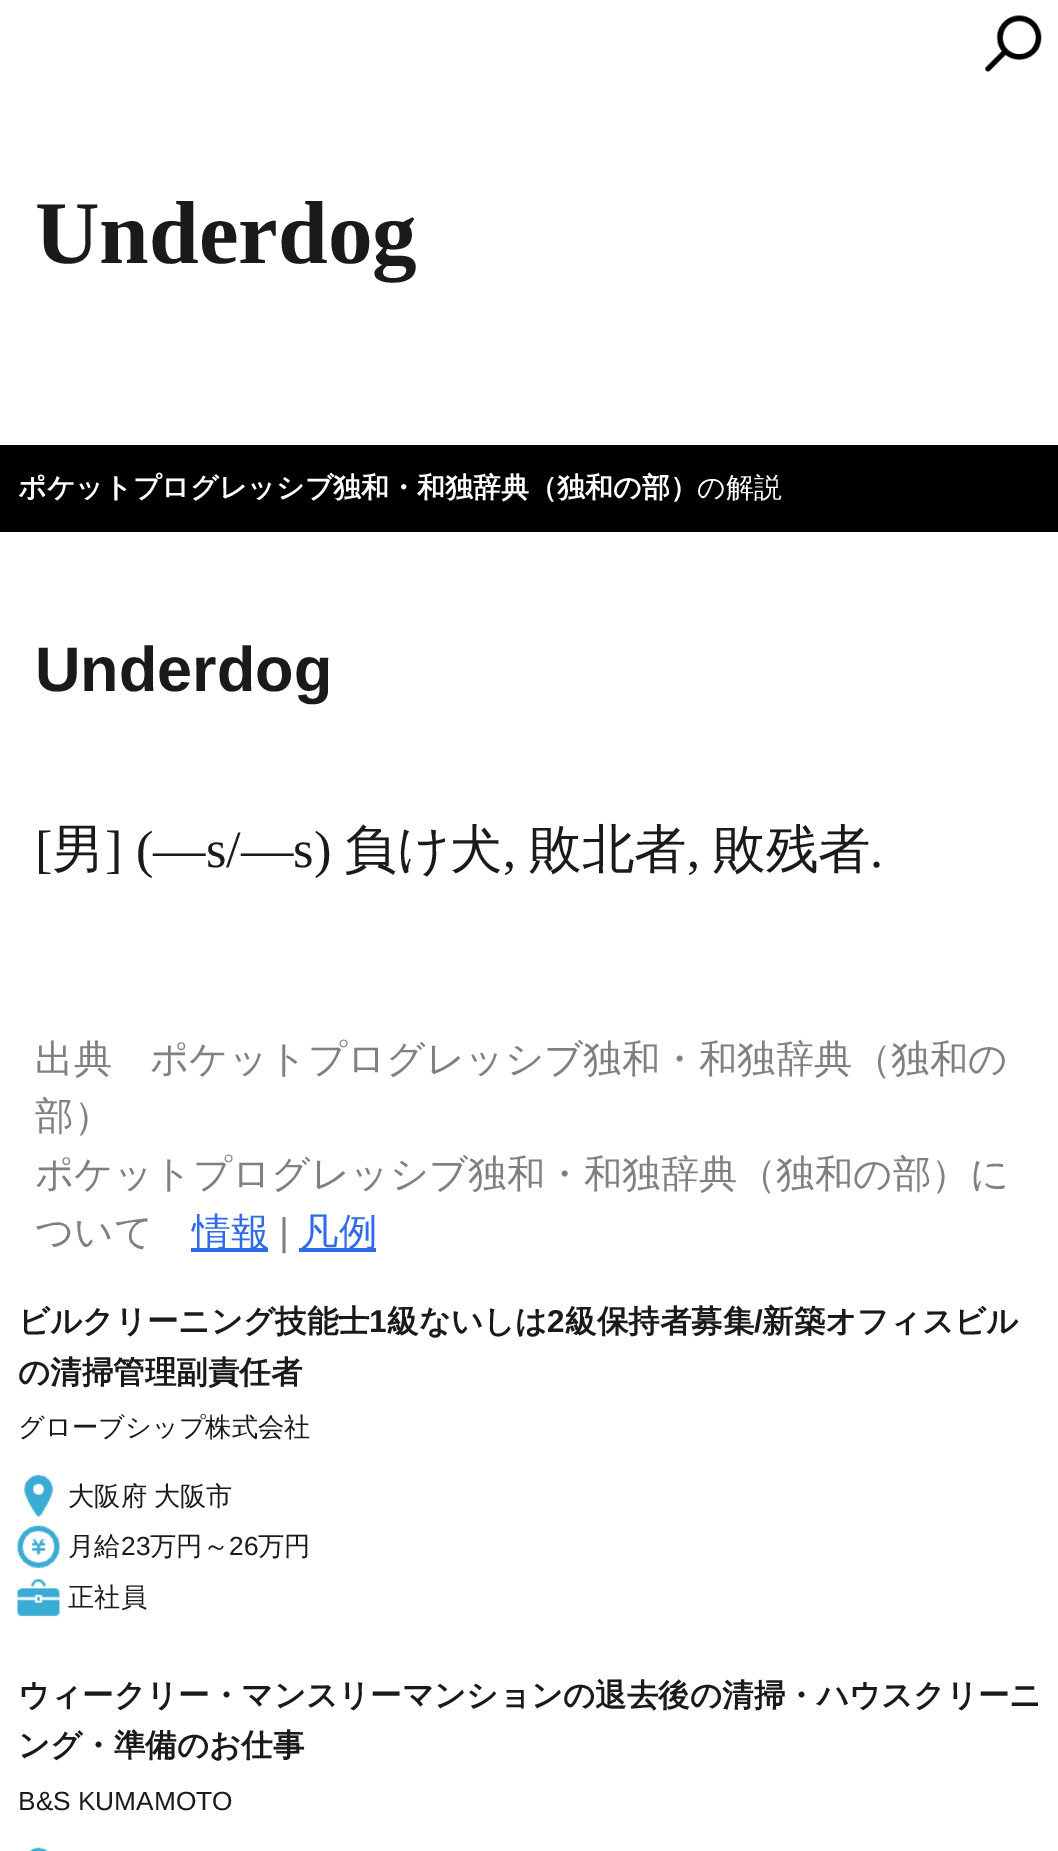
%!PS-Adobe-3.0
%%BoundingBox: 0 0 1058 1851
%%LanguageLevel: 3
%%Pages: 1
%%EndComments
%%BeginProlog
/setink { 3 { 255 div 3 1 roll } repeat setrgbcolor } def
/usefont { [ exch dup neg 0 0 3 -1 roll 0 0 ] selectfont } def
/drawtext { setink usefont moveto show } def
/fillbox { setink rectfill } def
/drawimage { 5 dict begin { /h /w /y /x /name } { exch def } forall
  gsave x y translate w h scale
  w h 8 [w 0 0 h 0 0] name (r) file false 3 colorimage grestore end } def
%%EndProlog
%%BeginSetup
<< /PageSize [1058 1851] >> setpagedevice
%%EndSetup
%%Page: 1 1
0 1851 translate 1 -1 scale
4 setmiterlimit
0 0 1058 1851 255 255 255 fillbox
(assets/img1.rgb) 985 15 57 57 drawimage
(Underdog) 35 263 /LiberationSerif-Bold 89.25 26 26 26 drawtext
0 445 1058 87 0 0 0 fillbox
(ポケットプログレッシブ独和・和独辞典（独和の部）) 18 497 /WenQuanYiZenHei-Bold 28 255 255 255 drawtext
(の解説) 697 497 /WenQuanYiZenHei-Medium 28 255 255 255 drawtext
(Underdog) 35 691 /LiberationSans-Bold 63 26 26 26 drawtext
([) 35 867 /LiberationSerif-Regular 52.5 26 26 26 drawtext
(男) 52 867 /WenQuanYiZenHei-Medium 52.5 26 26 26 drawtext
(] \(―s/―s\)) 105 867 /LiberationSerif-Regular 52.5 26 26 26 drawtext
(負け犬) 344 867 /WenQuanYiZenHei-Medium 52.5 26 26 26 drawtext
(,) 503 867 /LiberationSerif-Regular 52.5 26 26 26 drawtext
(敗北者) 529 867 /WenQuanYiZenHei-Medium 52.5 26 26 26 drawtext
(,) 687 867 /LiberationSerif-Regular 52.5 26 26 26 drawtext
(敗残者) 713 867 /WenQuanYiZenHei-Medium 52.5 26 26 26 drawtext
(.) 870 867 /LiberationSerif-Regular 52.5 26 26 26 drawtext
(出典) 35 1072 /WenQuanYiZenHei-Medium 38.5 128 128 128 drawtext
(ポケットプログレッシブ独和・和独辞典（独和の) 150 1072 /WenQuanYiZenHei-Medium 38.5 128 128 128 drawtext
(部）) 35 1129 /WenQuanYiZenHei-Medium 38.5 128 128 128 drawtext
(ポケットプログレッシブ独和・和独辞典（独和の部）に) 35 1187 /WenQuanYiZenHei-Medium 38.5 128 128 128 drawtext
(ついて) 35 1245 /WenQuanYiZenHei-Medium 38.5 128 128 128 drawtext
191 1248 77 4 47 107 230 fillbox
(情報) 192 1245 /WenQuanYiZenHei-Medium 38.5 47 107 230 drawtext
(|) 279 1245 /LiberationSans-Regular 38.5 128 128 128 drawtext
299 1248 77 4 47 107 230 fillbox
(凡例) 300 1245 /WenQuanYiZenHei-Medium 38.5 47 107 230 drawtext
(ビルクリーニング技能士) 18 1332 /WenQuanYiZenHei-Bold 31.5 26 26 26 drawtext
(1) 369 1332 /LiberationSans-Bold 31.5 26 26 26 drawtext
(級ないしは) 387 1332 /WenQuanYiZenHei-Bold 31.5 26 26 26 drawtext
(2) 547 1332 /LiberationSans-Bold 31.5 26 26 26 drawtext
(級保持者募集) 565 1332 /WenQuanYiZenHei-Bold 31.5 26 26 26 drawtext
(/) 754 1332 /LiberationSans-Bold 31.5 26 26 26 drawtext
(新築オフィスビル) 762 1332 /WenQuanYiZenHei-Bold 31.5 26 26 26 drawtext
(の清掃管理副責任者) 18 1383 /WenQuanYiZenHei-Bold 31.5 26 26 26 drawtext
(グローブシップ株式会社) 18 1436 /WenQuanYiZenHei-Medium 26.25 26 26 26 drawtext
(assets/img2.rgb) 23 1475 31 42 drawimage
68 1505 moveto -1 0 32 (大阪府 大阪市) widthshow
(assets/img3.rgb) 17 1525 43 43 drawimage
(月給) 68 1555 /WenQuanYiZenHei-Medium 26.25 26 26 26 drawtext
(23) 121 1555 /LiberationSans-Regular 26.25 26 26 26 drawtext
(万円～) 150 1555 /WenQuanYiZenHei-Medium 26.25 26 26 26 drawtext
(26) 229 1555 /LiberationSans-Regular 26.25 26 26 26 drawtext
(万円) 258 1555 /WenQuanYiZenHei-Medium 26.25 26 26 26 drawtext
(assets/img4.rgb) 17 1579 43 38 drawimage
(正社員) 68 1606 /WenQuanYiZenHei-Medium 26.25 26 26 26 drawtext
(ウィークリー・マンスリーマンションの退去後の清掃・ハウスクリーニ) 18 1706 /WenQuanYiZenHei-Bold 31.5 26 26 26 drawtext
(ング・準備のお仕事) 18 1756 /WenQuanYiZenHei-Bold 31.5 26 26 26 drawtext
(B&S KUMAMOTO) 18 1810 /LiberationSans-Regular 26.25 26 26 26 drawtext
(assets/img5.rgb) 29 1847 19 4 drawimage
showpage
%%EOF
